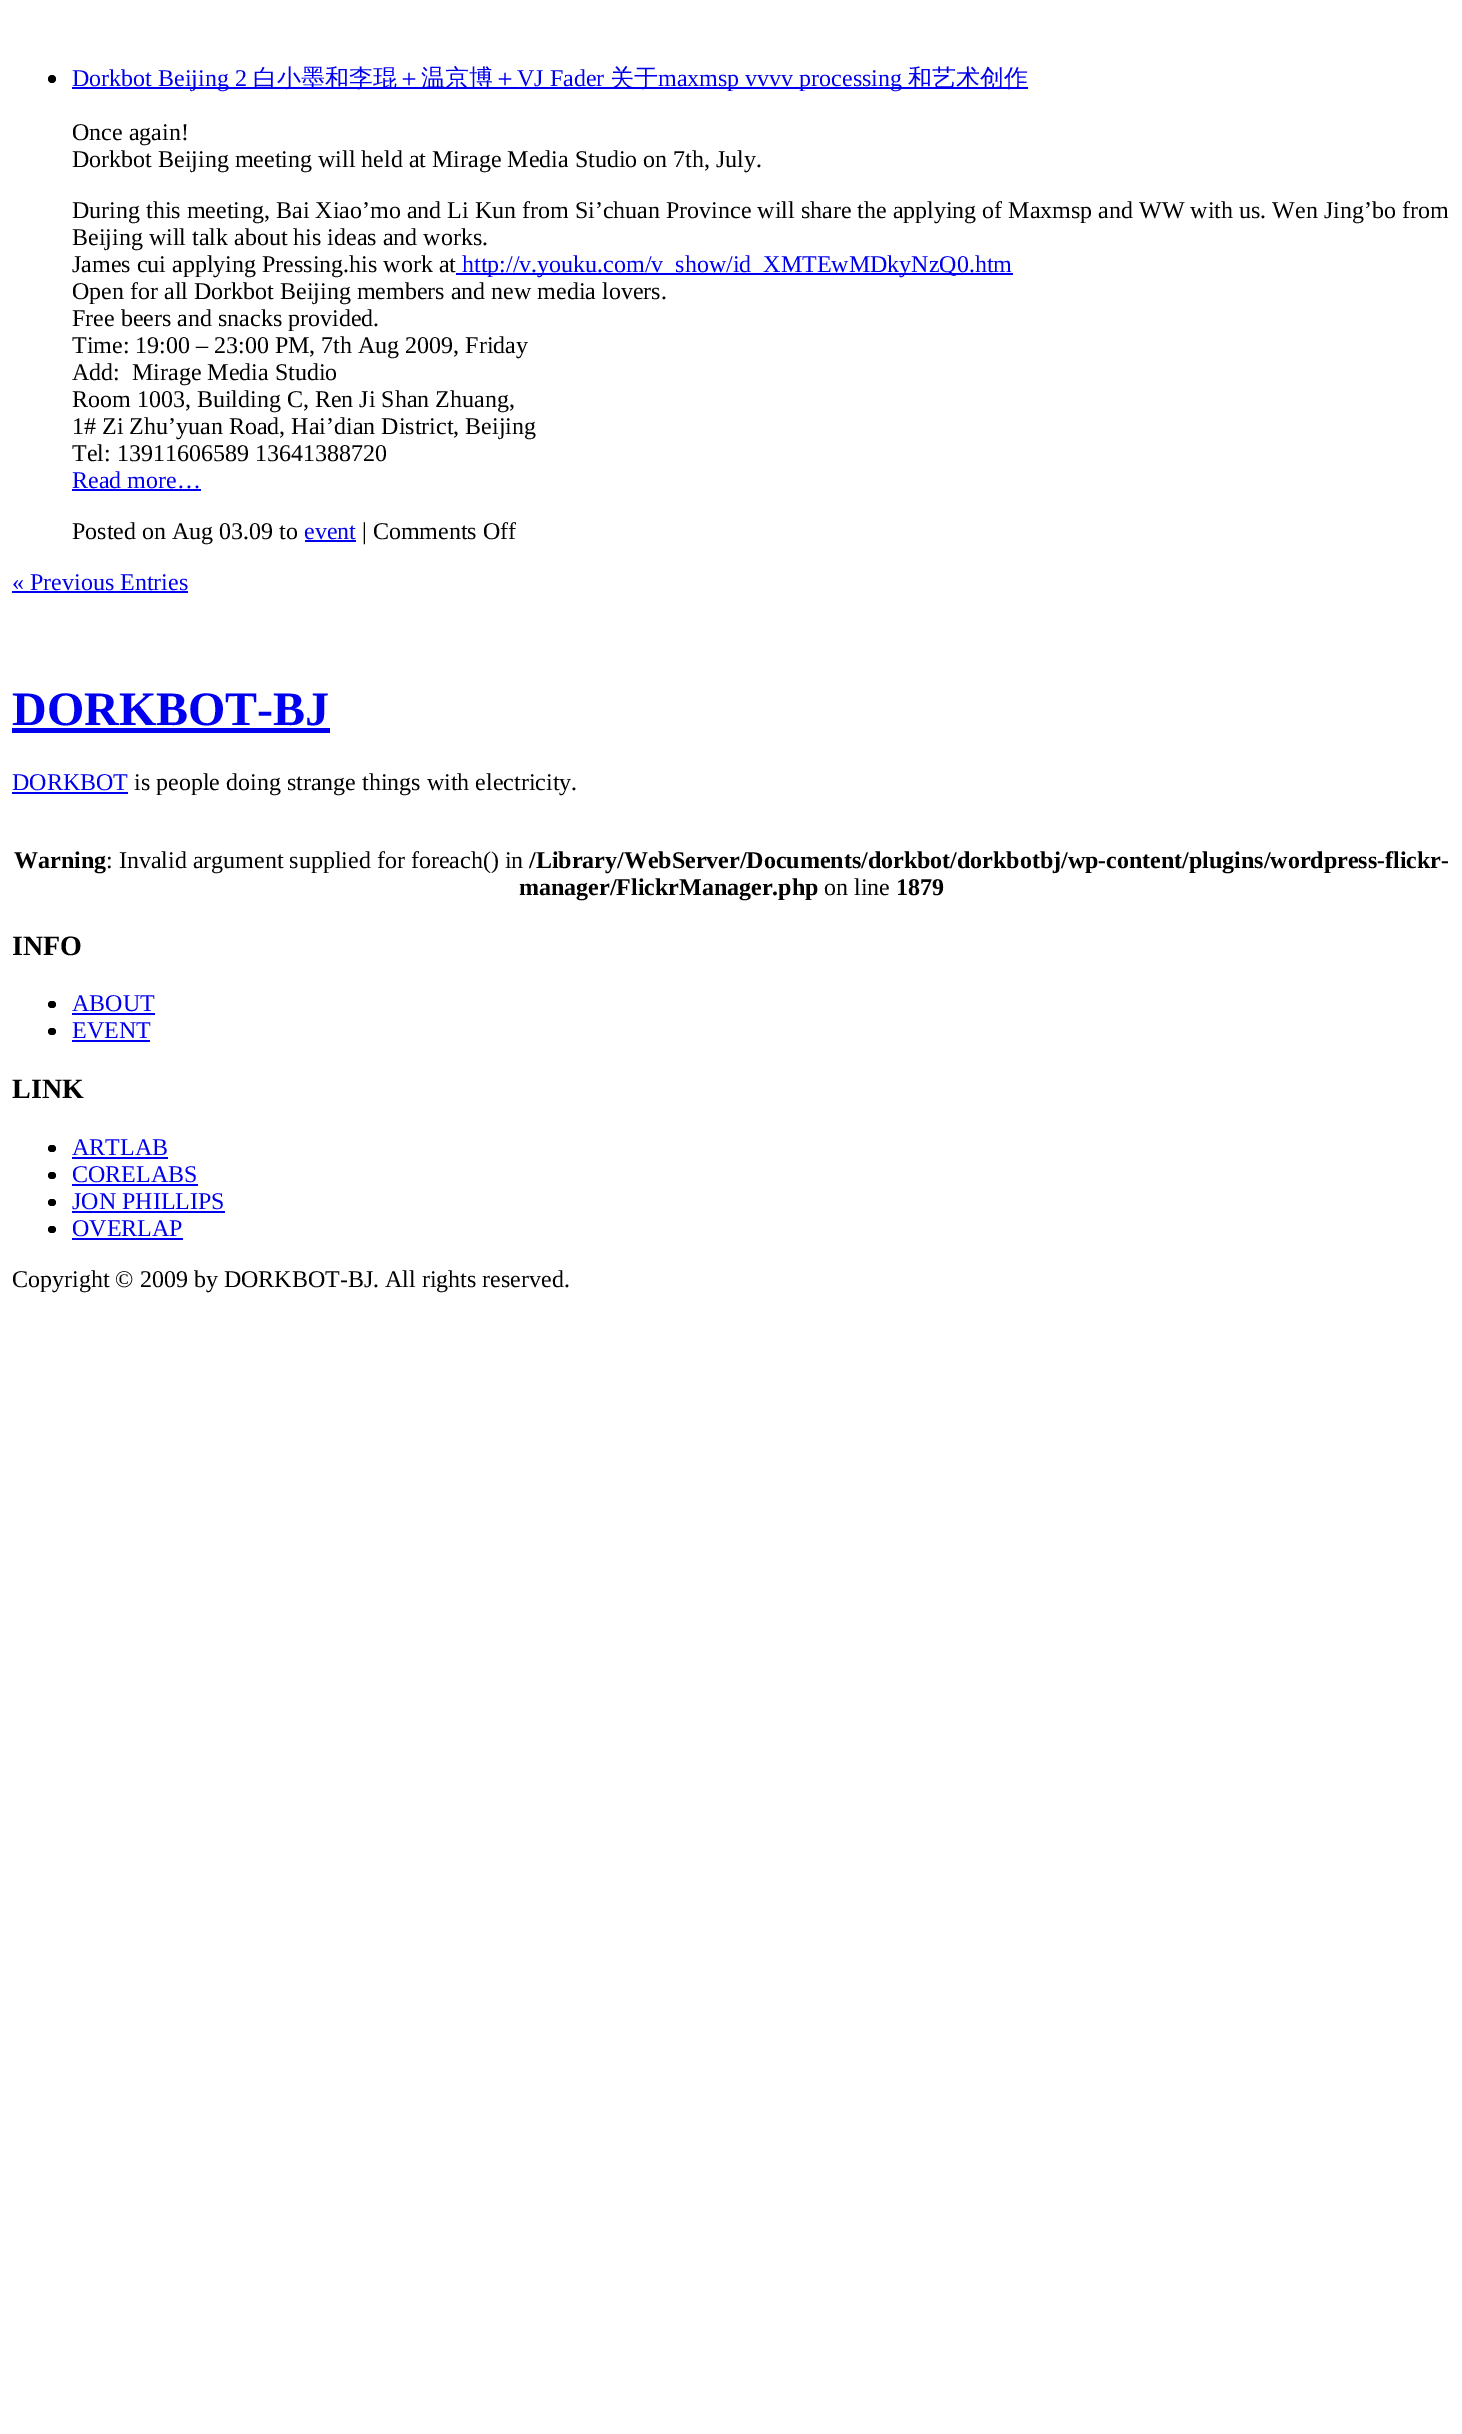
%!PS-Adobe-3.0
%%BoundingBox: 0 0 1462 2434
%%LanguageLevel: 3
%%Pages: 1
%%EndComments
%%BeginProlog
/setink { 3 { 255 div 3 1 roll } repeat setrgbcolor } def
/usefont { [ exch dup neg 0 0 3 -1 roll 0 0 ] selectfont } def
/drawtext { setink usefont moveto show } def
/fillbox { setink rectfill } def
/disc { newpath 0 360 arc closepath } def
/rrect { 5 dict begin { /r /h /w /y /x } { exch def } forall
  x r add y moveto x w add y 2 copy h add r arct x w add y h add x 1 index r arct
  x y h add x y r arct x y 2 copy exch w add exch r arct closepath end } def
%%EndProlog
%%BeginSetup
<< /PageSize [1462 2434] >> setpagedevice
%%EndSetup
%%Page: 1 1
0 2434 translate 1 -1 scale
4 setmiterlimit
0 0 1462 2434 255 255 255 fillbox
0 0 0 setink
52 79 4 disc fill
72 87 956 2 0 0 238 fillbox
(Dorkbot Beijing 2) 72 86 /LiberationSerif-Regular 24 0 0 238 drawtext
(白小墨和李琨＋温京博＋) 253 86 /WenQuanYiZenHei-Medium 24 0 0 238 drawtext
(VJ Fader) 517 86 /LiberationSerif-Regular 24 0 0 238 drawtext
(关于) 610 86 /WenQuanYiZenHei-Medium 24 0 0 238 drawtext
(maxmsp vvvv processing) 658 86 /LiberationSerif-Regular 24 0 0 238 drawtext
(和艺术创作) 908 86 /WenQuanYiZenHei-Medium 24 0 0 238 drawtext
(Once again!) 72 140 /LiberationSerif-Regular 24 0 0 0 drawtext
(Dorkbot Beijing meeting will held at Mirage Media Studio on 7th, July.) 72 167 /LiberationSerif-Regular 24 0 0 0 drawtext
(During this meeting, Bai Xiao’mo and Li Kun from Si’chuan Province will share the applying of Maxmsp and WW with us. Wen Jing’bo from) 72 218 /LiberationSerif-Regular 24 0 0 0 drawtext
(Beijing will talk about his ideas and works.) 72 245 /LiberationSerif-Regular 24 0 0 0 drawtext
(James cui applying Pressing.his work at) 72 272 /LiberationSerif-Regular 24 0 0 0 drawtext
456 273 557 2 0 0 238 fillbox
(http://v.youku.com/v_show/id_XMTEwMDkyNzQ0.htm) 462 272 /LiberationSerif-Regular 24 0 0 238 drawtext
(Open for all Dorkbot Beijing members and new media lovers.) 72 299 /LiberationSerif-Regular 24 0 0 0 drawtext
(Free beers and snacks provided.) 72 326 /LiberationSerif-Regular 24 0 0 0 drawtext
(Time: 19:00 – 23:00 PM, 7th Aug 2009, Friday) 72 353 /LiberationSerif-Regular 24 0 0 0 drawtext
(Add:  Mirage Media Studio) 72 380 /LiberationSerif-Regular 24 0 0 0 drawtext
(Room 1003, Building C, Ren Ji Shan Zhuang,) 72 407 /LiberationSerif-Regular 24 0 0 0 drawtext
(1# Zi Zhu’yuan Road, Hai’dian District, Beijing) 72 434 /LiberationSerif-Regular 24 0 0 0 drawtext
(Tel: 13911606589 13641388720) 72 461 /LiberationSerif-Regular 24 0 0 0 drawtext
(Read more…) 72 488 /LiberationSerif-Regular 24 0 0 238 drawtext
72 489 129 2 0 0 238 fillbox
(Posted on Aug 03.09 to) 72 539 /LiberationSerif-Regular 24 0 0 0 drawtext
(event) 304 539 /LiberationSerif-Regular 24 0 0 238 drawtext
305 540 51 2 0 0 238 fillbox
(| Comments Off) 362 539 /LiberationSerif-Regular 24 0 0 0 drawtext
(« Previous Entries) 12 590 /LiberationSerif-Regular 24 0 0 238 drawtext
12 591 176 2 0 0 238 fillbox
(DORKBOT-BJ) 12 725 /LiberationSerif-Bold 48 0 0 238 drawtext
12 728 318 5 0 0 238 fillbox
(DORKBOT) 12 790 /LiberationSerif-Regular 24 0 0 238 drawtext
12 792 116 2 0 0 238 fillbox
(is people doing strange things with electricity.) 134 790 /LiberationSerif-Regular 24 0 0 0 drawtext
(Warning) 14 868 /LiberationSerif-Bold 24 0 0 0 drawtext
(: Invalid argument supplied for foreach\(\) in) 106 868 /LiberationSerif-Regular 24 0 0 0 drawtext
(/Library/WebServer/Documents/dorkbot/dorkbotbj/wp-content/plugins/wordpress-flickr-) 529 868 /LiberationSerif-Bold 24 0 0 0 drawtext
(manager/FlickrManager.php) 519 895 /LiberationSerif-Bold 24 0 0 0 drawtext
(on line) 824 895 /LiberationSerif-Regular 24 0 0 0 drawtext
(1879) 896 895 /LiberationSerif-Bold 24 0 0 0 drawtext
(INFO) 12 955 /LiberationSerif-Bold 28 0 0 0 drawtext
48 1001 8 7 3.5 rrect fill
(ABOUT) 72 1011 /LiberationSerif-Regular 24 0 0 238 drawtext
72 1013 83 2 0 0 238 fillbox
0 0 0 setink
48 1028 8 7 3.5 rrect fill
(EVENT) 72 1038 /LiberationSerif-Regular 24 0 0 238 drawtext
72 1040 78 2 0 0 238 fillbox
(LINK) 12 1098 /LiberationSerif-Bold 28 0 0 0 drawtext
48 1145 8 7 3.5 rrect fill
(ARTLAB) 72 1155 /LiberationSerif-Regular 24 0 0 238 drawtext
72 1157 96 2 0 0 238 fillbox
0 0 0 setink
48 1172 8 7 3.5 rrect fill
(CORELABS) 72 1182 /LiberationSerif-Regular 24 0 0 238 drawtext
72 1184 126 2 0 0 238 fillbox
0 0 0 setink
48 1199 8 7 3.5 rrect fill
(JON PHILLIPS) 72 1209 /LiberationSerif-Regular 24 0 0 238 drawtext
72 1211 153 2 0 0 238 fillbox
0 0 0 setink
48 1226 8 7 3.5 rrect fill
(OVERLAP) 72 1236 /LiberationSerif-Regular 24 0 0 238 drawtext
72 1238 111 2 0 0 238 fillbox
(Copyright © 2009 by DORKBOT-BJ. All rights reserved.) 12 1287 /LiberationSerif-Regular 24 0 0 0 drawtext
showpage
%%EOF
